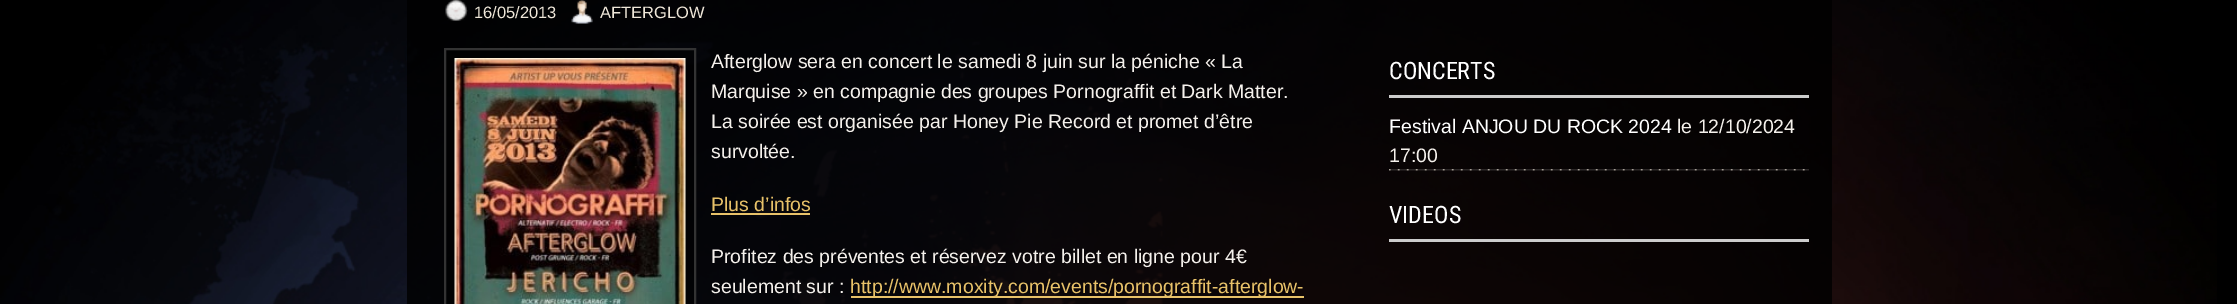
%!PS-Adobe-3.0
%%BoundingBox: 0 0 2237 304
%%LanguageLevel: 3
%%Pages: 1
%%EndComments
%%BeginProlog
/setink { 3 { 255 div 3 1 roll } repeat setrgbcolor } def
/usefont { [ exch dup neg 0 0 3 -1 roll 0 0 ] selectfont } def
/drawtext { setink usefont moveto show } def
/fillbox { setink rectfill } def
/setalpha { dup .setfillconstantalpha .setstrokeconstantalpha } def
/drawimage { 5 dict begin { /h /w /y /x /name } { exch def } forall
  gsave x y translate w h scale
  w h 8 [w 0 0 h 0 0] name (r) file false 3 colorimage grestore end } def
%%EndProlog
%%BeginSetup
<< /PageSize [2237 304] /PageUsesTransparency true >> setpagedevice
%%EndSetup
%%Page: 1 1
0 .pushpdf14devicefilter
0 304 translate 1 -1 scale
4 setmiterlimit
0 0 2237 304 0 0 0 fillbox
(assets/img1.rgb) 0 0 2217 304 drawimage
0.82 setalpha
407 0 1425 304 0 0 0 fillbox
1 setalpha
(assets/img2.rgb) 445 0 23 21 drawimage
(16/05/2013) 474 18 /LiberationSans-Regular 16.5 239 231 217 drawtext
(assets/img3.rgb) 571 0 22 24 drawimage
(AFTERGLOW) 600 18 /LiberationSans-Regular 16.5 239 231 217 drawtext
0.5 setalpha
0 0 0 setink
445 49 moveto 695 49 lineto 695 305 lineto 445 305 lineto closepath fill
1 setalpha
51 51 51 setink
2 setlinewidth
445 49 moveto 695 49 lineto 695 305 lineto 445 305 lineto closepath stroke
(assets/img4.rgb) 454 58 232 246 drawimage
(Afterglow sera en concert le samedi 8 juin sur la péniche « La) 711 68 /LiberationSans-Regular 19.5 245 241 236 drawtext
(Marquise » en compagnie des groupes Pornograffit et Dark Matter.) 711 98 /LiberationSans-Regular 19.5 245 241 236 drawtext
(La soirée est organisée par Honey Pie Record et promet d’être) 711 128 /LiberationSans-Regular 19.5 245 241 236 drawtext
(survoltée.) 711 158 /LiberationSans-Regular 19.5 245 241 236 drawtext
(Plus d’infos) 711 211 /LiberationSans-Regular 19.5 232 194 105 drawtext
711 213 99 2 232 194 105 fillbox
(Profitez des préventes et réservez votre billet en ligne pour 4€) 711 263 /LiberationSans-Regular 19.5 245 241 236 drawtext
(seulement sur :) 711 293 /LiberationSans-Regular 19.5 245 241 236 drawtext
851 296 453 2 232 194 105 fillbox
(http://www.moxity.com/events/pornograffit-afterglow-) 850 293 /LiberationSans-Regular 19.5 232 194 105 drawtext
1389 95 420 3 204 204 204 fillbox
(CONCERTS) 1389 79 /RobotoCondensed-Regular 24 255 255 255 drawtext
(assets/img5.rgb) 1389 169 420 2 drawimage
(Festival ANJOU DU ROCK 2024) 1389 133 /LiberationSans-Regular 19.5 255 255 255 drawtext
(le 12/10/2024) 1677 133 /LiberationSans-Regular 19.5 245 241 236 drawtext
(17:00) 1389 162 /LiberationSans-Regular 19.5 245 241 236 drawtext
1389 239 420 3 204 204 204 fillbox
(VIDEOS) 1389 223 /RobotoCondensed-Regular 24 255 255 255 drawtext
.poppdf14devicefilter showpage
%%EOF
